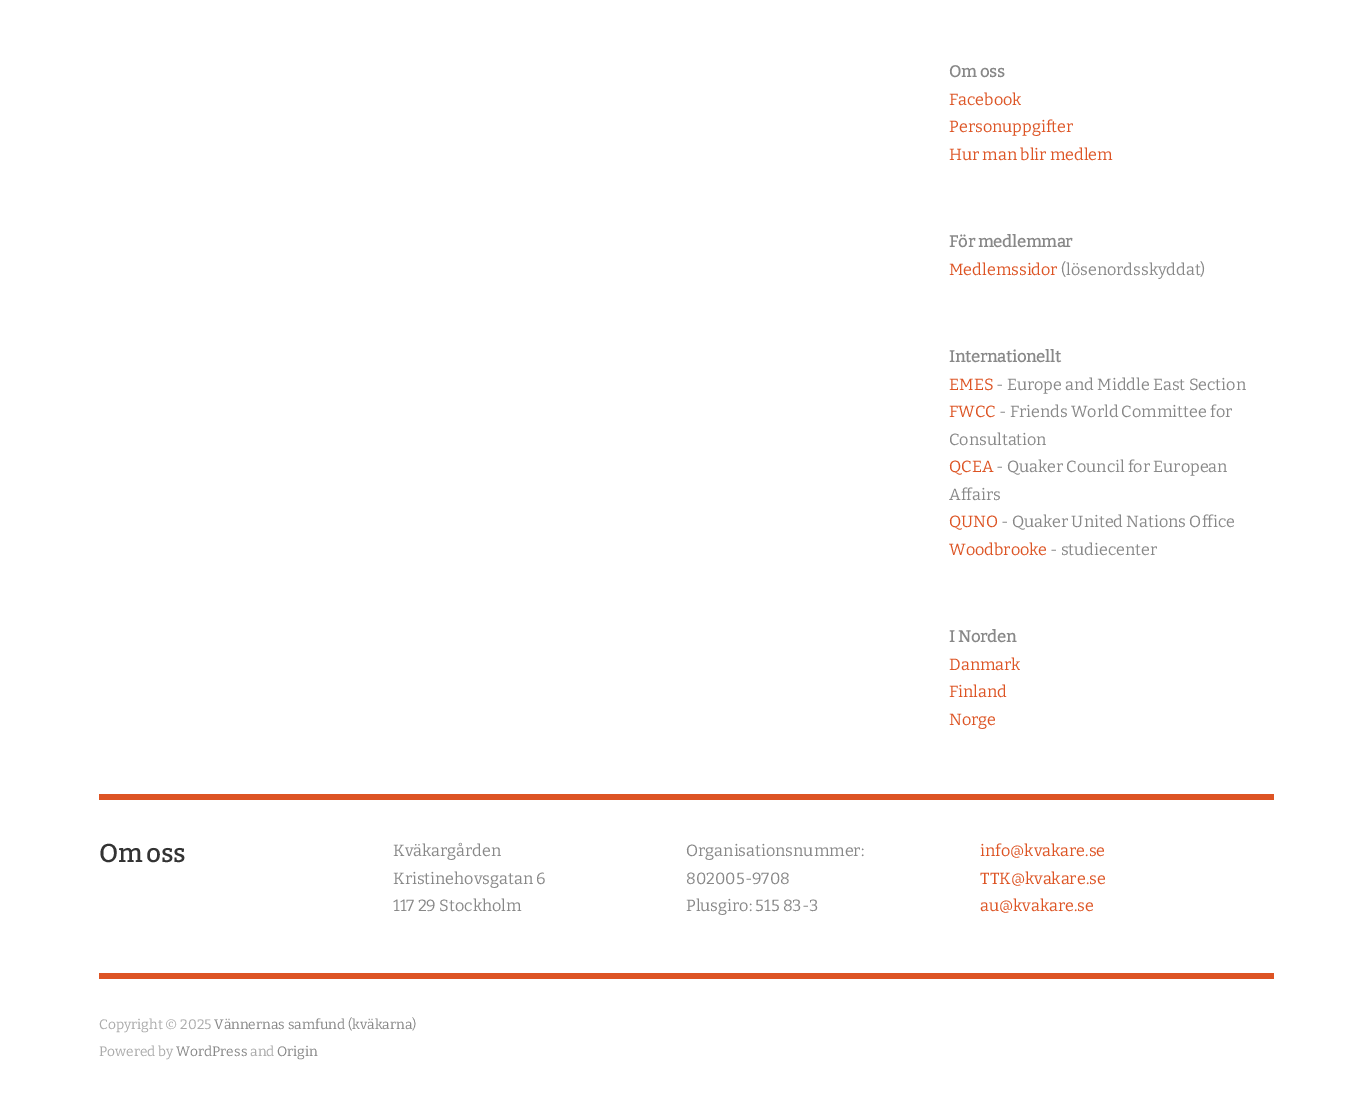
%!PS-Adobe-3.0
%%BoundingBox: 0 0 1372 1103
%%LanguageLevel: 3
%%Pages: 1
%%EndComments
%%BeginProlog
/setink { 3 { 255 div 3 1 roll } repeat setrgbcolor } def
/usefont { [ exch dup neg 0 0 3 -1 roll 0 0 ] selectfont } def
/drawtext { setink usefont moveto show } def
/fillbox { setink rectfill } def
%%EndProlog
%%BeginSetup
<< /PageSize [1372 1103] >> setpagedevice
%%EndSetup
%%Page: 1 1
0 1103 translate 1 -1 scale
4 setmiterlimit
0 0 1372 1103 255 255 255 fillbox
(Om oss) 949 77 /Bitter-Bold 16.25 136 136 136 drawtext
(Facebook) 949 105 /Bitter-Thin 16.25 221 84 36 drawtext
(Personuppgifter) 949 132 /Bitter-Thin 16.25 221 84 36 drawtext
(Hur man blir medlem) 949 160 /Bitter-Thin 16.25 221 84 36 drawtext
(För medlemmar) 949 247 /Bitter-Bold 16.25 136 136 136 drawtext
(Medlemssidor) 949 275 /Bitter-Thin 16.25 221 84 36 drawtext
(\(lösenordsskyddat\)) 1061 275 /Bitter-Thin 16.25 136 136 136 drawtext
(Internationellt) 949 362 /Bitter-Bold 16.25 136 136 136 drawtext
(EMES) 949 390 /Bitter-Thin 16.25 221 84 36 drawtext
(- Europe and Middle East Section) 996 390 /Bitter-Thin 16.25 136 136 136 drawtext
(FWCC) 949 417 /Bitter-Thin 16.25 221 84 36 drawtext
(- Friends World Committee for) 999 417 /Bitter-Thin 16.25 136 136 136 drawtext
(Consultation) 949 445 /Bitter-Thin 16.25 136 136 136 drawtext
(QCEA) 949 472 /Bitter-Thin 16.25 221 84 36 drawtext
(- Quaker Council for European) 996 472 /Bitter-Thin 16.25 136 136 136 drawtext
(Affairs) 949 500 /Bitter-Thin 16.25 136 136 136 drawtext
(QUNO) 949 527 /Bitter-Thin 16.25 221 84 36 drawtext
(- Quaker United Nations Office) 1001 527 /Bitter-Thin 16.25 136 136 136 drawtext
(Woodbrooke) 949 555 /Bitter-Thin 16.25 221 84 36 drawtext
(- studiecenter) 1050 555 /Bitter-Thin 16.25 136 136 136 drawtext
(I Norden) 949 642 /Bitter-Bold 16.25 136 136 136 drawtext
(Danmark) 949 670 /Bitter-Thin 16.25 221 84 36 drawtext
(Finland) 949 697 /Bitter-Thin 16.25 221 84 36 drawtext
(Norge) 949 725 /Bitter-Thin 16.25 221 84 36 drawtext
99 794 1175 6 221 84 36 fillbox
(Om oss) 99 862 /Bitter-Bold 25 51 51 51 drawtext
(Kväkargården) 393 856 /Bitter-Thin 16.25 136 136 136 drawtext
(Kristinehovsgatan 6) 393 884 /Bitter-Thin 16.25 136 136 136 drawtext
(117 29 Stockholm) 393 911 /Bitter-Thin 16.25 136 136 136 drawtext
(Organisationsnummer:) 686 856 /Bitter-Thin 16.25 136 136 136 drawtext
(802005-9708) 686 884 /Bitter-Thin 16.25 136 136 136 drawtext
(Plusgiro: 515 83-3) 686 911 /Bitter-Thin 16.25 136 136 136 drawtext
(info@kvakare.se) 980 856 /Bitter-Thin 16.25 221 84 36 drawtext
(TTK@kvakare.se) 980 884 /Bitter-Thin 16.25 221 84 36 drawtext
(au@kvakare.se) 980 911 /Bitter-Thin 16.25 221 84 36 drawtext
99 973 1175 6 221 84 36 fillbox
(Copyright © 2025) 99 1029 /Bitter-Thin 13.75 170 170 170 drawtext
(Vännernas samfund \(kväkarna\)) 214 1029 /Bitter-Thin 13.75 136 136 136 drawtext
(Powered by) 99 1056 /Bitter-Thin 13.75 170 170 170 drawtext
(WordPress) 176 1056 /Bitter-Thin 13.75 136 136 136 drawtext
(and) 250 1056 /Bitter-Thin 13.75 170 170 170 drawtext
(Origin) 277 1056 /Bitter-Thin 13.75 136 136 136 drawtext
showpage
%%EOF
